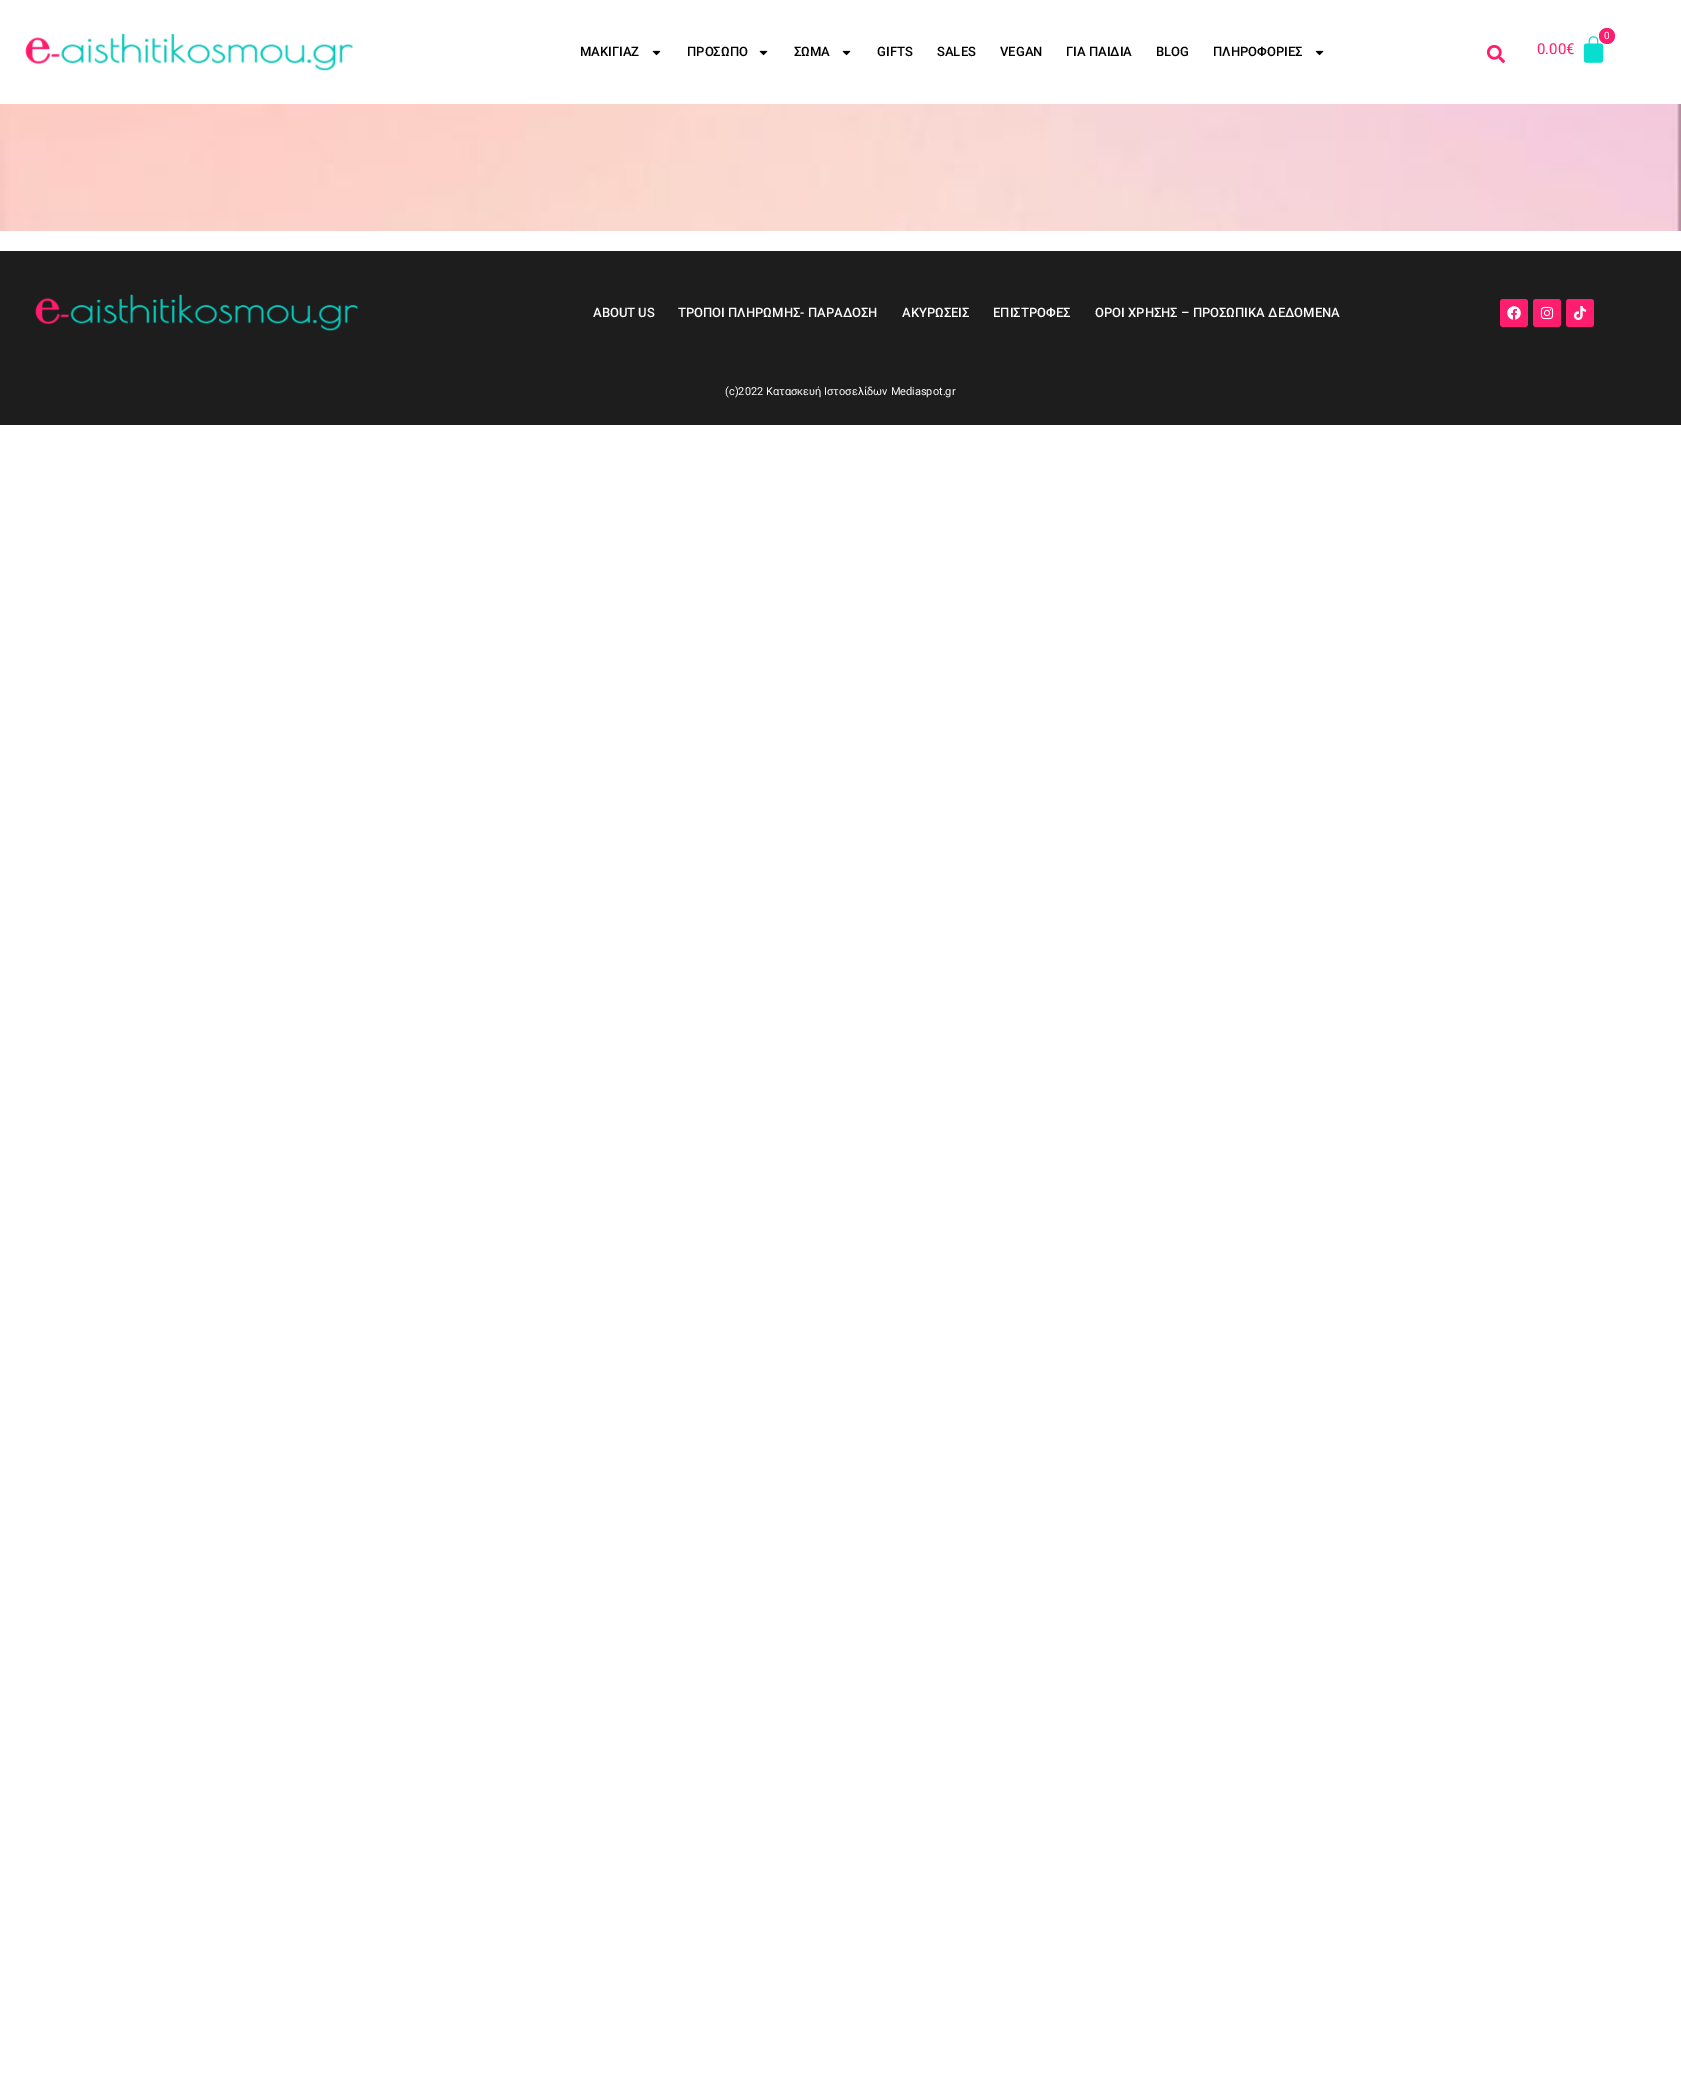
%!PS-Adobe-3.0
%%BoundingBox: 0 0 1681 2078
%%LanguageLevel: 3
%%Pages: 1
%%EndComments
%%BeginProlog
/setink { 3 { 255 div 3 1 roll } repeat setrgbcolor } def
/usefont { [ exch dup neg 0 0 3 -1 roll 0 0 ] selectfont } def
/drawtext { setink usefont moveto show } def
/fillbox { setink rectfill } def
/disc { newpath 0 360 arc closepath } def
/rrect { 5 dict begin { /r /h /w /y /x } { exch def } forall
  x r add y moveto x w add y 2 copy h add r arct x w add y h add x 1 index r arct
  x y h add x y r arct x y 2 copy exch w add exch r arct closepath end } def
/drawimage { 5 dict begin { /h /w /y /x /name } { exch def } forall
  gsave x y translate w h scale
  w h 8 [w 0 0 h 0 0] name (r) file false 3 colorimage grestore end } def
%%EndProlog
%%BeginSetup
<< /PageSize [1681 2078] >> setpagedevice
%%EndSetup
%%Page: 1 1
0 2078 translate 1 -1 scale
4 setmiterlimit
0 0 1681 2078 255 255 255 fillbox
(assets/img1.rgb) 25 33 329 38 drawimage
(ΜΑΚΙΓΙΑΖ) 580 56 /Roboto-Medium 13 0 0 0 drawtext
(assets/img2.rgb) 652 50 9 6 drawimage
(ΠΡΟΣΩΠΟ) 687 56 /Roboto-Medium 13 0 0 0 drawtext
(assets/img2.rgb) 759 50 9 6 drawimage
(ΣΩΜΑ) 794 56 /Roboto-Medium 13 0 0 0 drawtext
(assets/img2.rgb) 842 50 9 6 drawimage
(GIFTS) 877 56 /Roboto-Medium 13 0 0 0 drawtext
(SALES) 937 56 /Roboto-Medium 13 0 0 0 drawtext
(VEGAN) 1000 56 /Roboto-Medium 13 0 0 0 drawtext
(ΓΙΑ ΠΑΙΔΙΑ) 1066 56 /Roboto-Medium 13 0 0 0 drawtext
(BLOG) 1156 56 /Roboto-Medium 13 0 0 0 drawtext
(ΠΛΗΡΟΦΟΡΙΕΣ) 1213 56 /Roboto-Medium 13 0 0 0 drawtext
(assets/img2.rgb) 1315 50 9 6 drawimage
(assets/img3.rgb) 1487 45 18 18 drawimage
(assets/img4.rgb) 1583 36 21 27 drawimage
255 29 111 setink
1607 36 8 disc fill
(0) 1604 39 /Roboto-Regular 10 255 255 255 drawtext
(0.00€) 1537 54 /Roboto-Regular 15 255 29 111 drawtext
(assets/img5.rgb) 0 104 1681 127 drawimage
0 251 1681 174 29 29 29 fillbox
(assets/img6.rgb) 35 294 323 37 drawimage
(ABOUT US) 593 317 /Roboto-Medium 13 255 255 255 drawtext
(ΤΡΟΠΟΙ ΠΛΗΡΩΜΗΣ- ΠΑΡΑΔΟΣΗ) 678 317 /Roboto-Medium 13 255 255 255 drawtext
(ΑΚΥΡΩΣΕΙΣ) 902 317 /Roboto-Medium 13 255 255 255 drawtext
(ΕΠΙΣΤΡΟΦΕΣ) 993 317 /Roboto-Medium 13 255 255 255 drawtext
(ΟΡΟΙ ΧΡΗΣΗΣ – ΠΡΟΣΩΠΙΚΑ ΔΕΔΟΜΕΝΑ) 1095 317 /Roboto-Medium 13 255 255 255 drawtext
255 29 111 setink
1500 299 28 28 3 rrect fill
(assets/img7.rgb) 1507 306 14 14 drawimage
1533 299 28 28 3 rrect fill
(assets/img8.rgb) 1540 306 14 14 drawimage
1566 299 28 28 3 rrect fill
(assets/img9.rgb) 1573 306 14 14 drawimage
(\(c\)2022 Κατασκευή Ιστοσελίδων Mediaspot.gr) 725 395 /Roboto-Regular 11 255 255 255 drawtext
showpage
%%EOF
